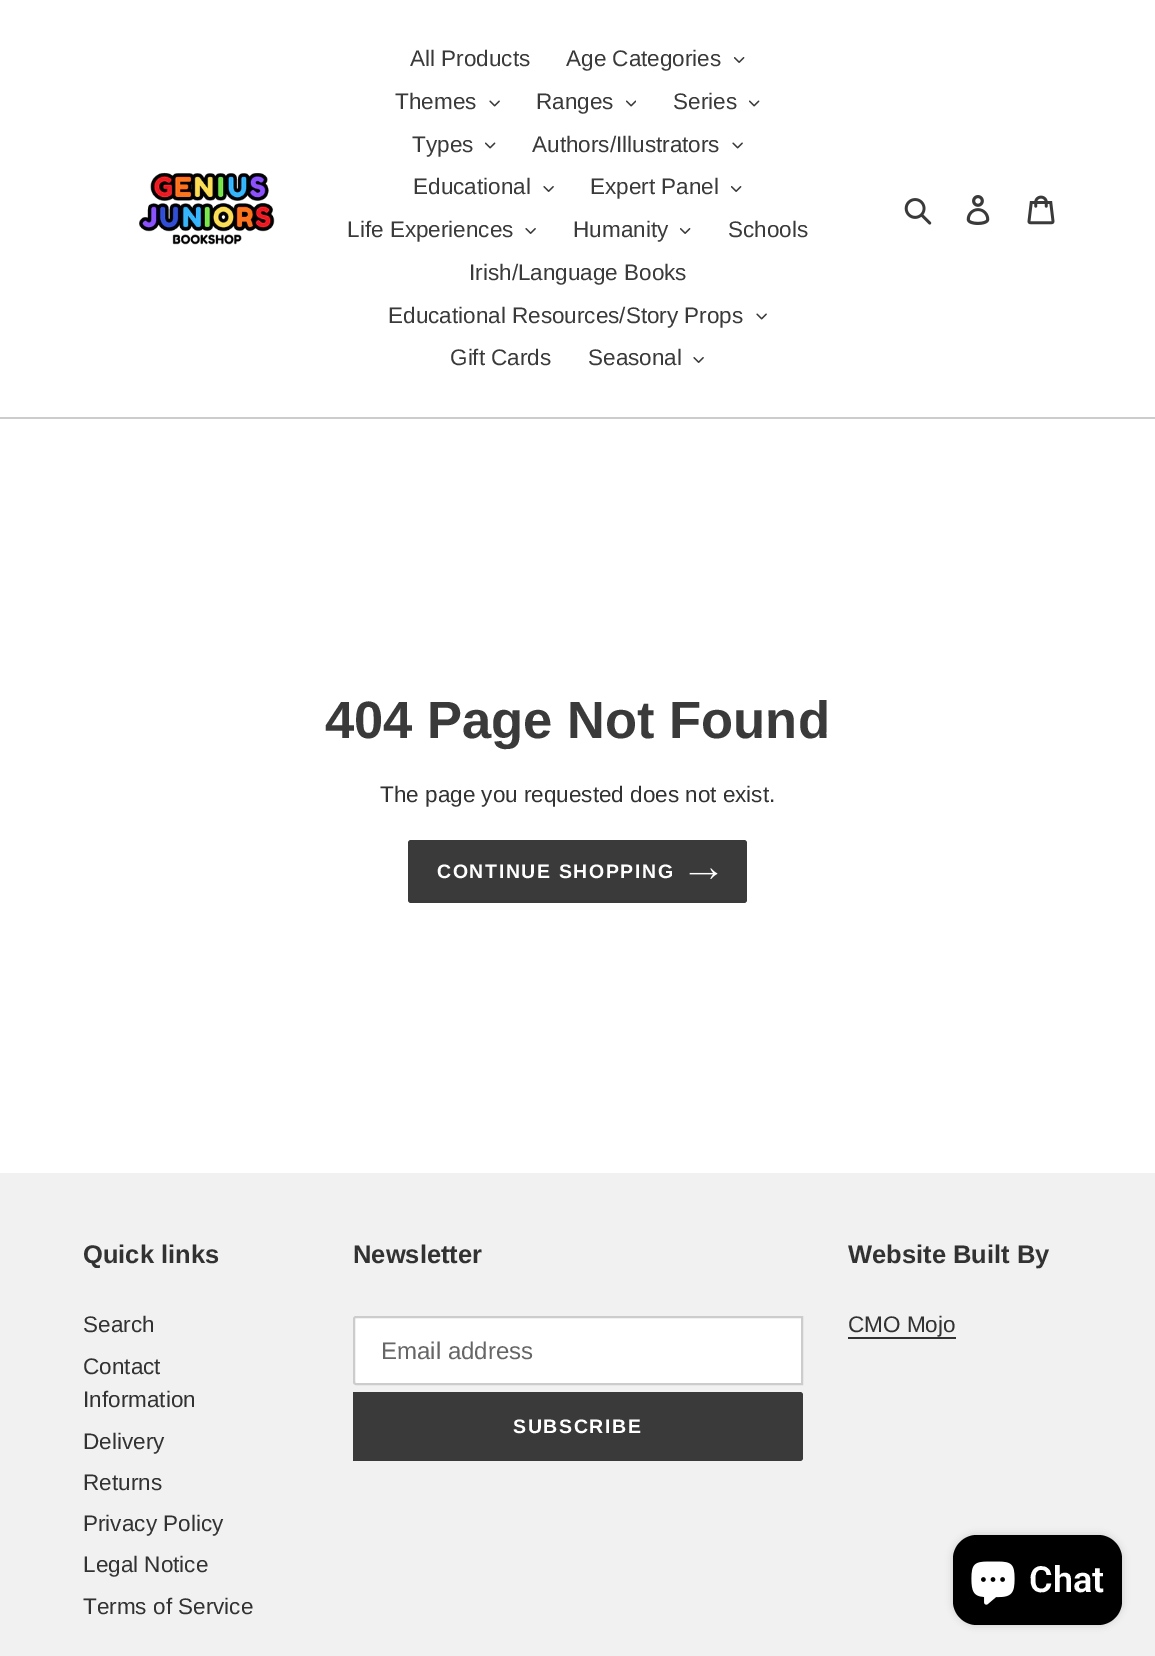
%!PS-Adobe-3.0
%%BoundingBox: 0 0 1155 1656
%%LanguageLevel: 3
%%Pages: 1
%%EndComments
%%BeginProlog
/setink { 3 { 255 div 3 1 roll } repeat setrgbcolor } def
/usefont { [ exch dup neg 0 0 3 -1 roll 0 0 ] selectfont } def
/drawtext { setink usefont moveto show } def
/fillbox { setink rectfill } def
/setalpha { dup .setfillconstantalpha .setstrokeconstantalpha } def
/rrect { 5 dict begin { /r /h /w /y /x } { exch def } forall
  x r add y moveto x w add y 2 copy h add r arct x w add y h add x 1 index r arct
  x y h add x y r arct x y 2 copy exch w add exch r arct closepath end } def
/softshadow { 12 dict begin { /a /b /q /h /w /y /x } { exch def } forall gsave /was 0 def
  9 -2 -9 { dup b mul 4 div /e exch def 1 sub .425 mul 2.718 exch exp 1 add a .99 .min exch div /now exch def
    1 1 now sub 1 was sub div sub setalpha /was now def
    w h .min e 2 mul add 0 gt { x e sub y e sub w e 2 mul add h e 2 mul add
      q e add b .6 mul add w h .min 2 div e add .min 0 .max rrect fill } if } for grestore end } def
/drawimage { 5 dict begin { /h /w /y /x /name } { exch def } forall
  gsave x y translate w h scale
  w h 8 [w 0 0 h 0 0] name (r) file false 3 colorimage grestore end } def
%%EndProlog
%%BeginSetup
<< /PageSize [1155 1656] /PageUsesTransparency true >> setpagedevice
%%EndSetup
%%Page: 1 1
0 .pushpdf14devicefilter
0 1656 translate 1 -1 scale
4 setmiterlimit
0 0 1155 1656 255 255 255 fillbox
0 417 1155 2 204 204 204 fillbox
(assets/img1.rgb) 139 172 136 73 drawimage
(All Products) 410 66 /LiberationSans-Regular 22.5 58 58 58 drawtext
(Age Categories) 566 66 /LiberationSans-Regular 22.5 58 58 58 drawtext
(assets/img2.rgb) 734 57 11 6 drawimage
(Themes) 395 109 /LiberationSans-Regular 22.5 58 58 58 drawtext
(assets/img3.rgb) 489 100 11 7 drawimage
(Ranges) 536 109 /LiberationSans-Regular 22.5 58 58 58 drawtext
(assets/img4.rgb) 626 100 10 7 drawimage
(Series) 673 109 /LiberationSans-Regular 22.5 58 58 58 drawtext
(assets/img5.rgb) 749 100 11 7 drawimage
(Types) 412 152 /LiberationSans-Regular 22.5 58 58 58 drawtext
(assets/img5.rgb) 485 142 11 7 drawimage
(Authors/Illustrators) 532 152 /LiberationSans-Regular 22.5 58 58 58 drawtext
(assets/img3.rgb) 732 142 11 7 drawimage
(Educational) 413 194 /LiberationSans-Regular 22.5 58 58 58 drawtext
(assets/img6.rgb) 543 186 11 6 drawimage
(Expert Panel) 590 194 /LiberationSans-Regular 22.5 58 58 58 drawtext
(assets/img2.rgb) 731 186 11 6 drawimage
(Life Experiences) 347 237 /LiberationSans-Regular 22.5 58 58 58 drawtext
(assets/img6.rgb) 525 228 11 6 drawimage
(Humanity) 573 237 /LiberationSans-Regular 22.5 58 58 58 drawtext
(assets/img2.rgb) 680 228 11 6 drawimage
(Schools) 728 237 /LiberationSans-Regular 22.5 58 58 58 drawtext
(Irish/Language Books) 469 280 /LiberationSans-Regular 22.5 58 58 58 drawtext
(Educational Resources/Story Props) 388 323 /LiberationSans-Regular 22.5 58 58 58 drawtext
(assets/img3.rgb) 756 313 11 7 drawimage
(Gift Cards) 450 365 /LiberationSans-Regular 22.5 58 58 58 drawtext
(Seasonal) 588 365 /LiberationSans-Regular 22.5 58 58 58 drawtext
(assets/img6.rgb) 693 357 11 6 drawimage
(assets/img7.rgb) 904 198 28 27 drawimage
(assets/img8.rgb) 966 195 24 30 drawimage
(assets/img9.rgb) 1027 195 28 30 drawimage
(404 Page Not Found) 325 738 /LiberationSans-Bold 52.5 58 58 58 drawtext
(The page you requested does not exist.) 380 802 /LiberationSans-Regular 22.5 51 50 50 drawtext
58 58 58 setink
408 840 339 63 3 rrect fill
/LiberationSans-Bold 19.5 usefont
255 255 255 setink
437 878 moveto 1.6 0 (CONTINUE SHOPPING) ashow
(assets/img10.rgb) 689 868 29 11 drawimage
0 1173 1155 483 241 241 241 fillbox
(Quick links) 83 1263 /LiberationSans-Bold 25.5 51 50 50 drawtext
(Search) 83 1332 /LiberationSans-Regular 22.5 51 50 50 drawtext
(Contact) 83 1374 /LiberationSans-Regular 22.5 51 50 50 drawtext
(Information) 83 1407 /LiberationSans-Regular 22.5 51 50 50 drawtext
(Delivery) 83 1449 /LiberationSans-Regular 22.5 51 50 50 drawtext
(Returns) 83 1490 /LiberationSans-Regular 22.5 51 50 50 drawtext
(Privacy Policy) 83 1531 /LiberationSans-Regular 22.5 51 50 50 drawtext
(Legal Notice) 83 1572 /LiberationSans-Regular 22.5 51 50 50 drawtext
(Terms of Service) 83 1614 /LiberationSans-Regular 22.5 51 50 50 drawtext
(Newsletter) 353 1263 /LiberationSans-Bold 25.5 51 50 50 drawtext
255 255 255 setink
356 1317 moveto 802 1317 lineto 802 1384 lineto 356 1384 lineto 355 1384 354 1383 354 1382 curveto 354 1319 lineto 354 1318 355 1317 356 1317 curveto closepath gsave fill grestore
204 204 204 setink
2 setlinewidth
stroke
(Email address) 381 1359 /LiberationSans-Regular 24 102 102 102 drawtext
58 58 58 setink
353 1392 moveto 800 1392 lineto 801.5 1392 803 1393.5 803 1395 curveto 803 1458 lineto 803 1459.5 801.5 1461 800 1461 curveto 353 1461 lineto closepath fill
/LiberationSans-Bold 19.5 usefont
255 255 255 setink
513 1433 moveto 1.6 0 (SUBSCRIBE) ashow
(Website Built By) 848 1263 /LiberationSans-Bold 25.5 51 50 50 drawtext
(CMO Mojo) 848 1332 /LiberationSans-Regular 22.5 51 50 50 drawtext
848 1337 108 2 51 50 50 fillbox
0 0 0 setink
953 1535 169 90 24 4 0.15 softshadow
953 1535 169 90 24 rrect fill
(assets/img11.rgb) 971 1561 44 44 drawimage
(Chat) 1029 1592 /Roboto-SemiBold 36 255 255 255 drawtext
.poppdf14devicefilter showpage
%%EOF
